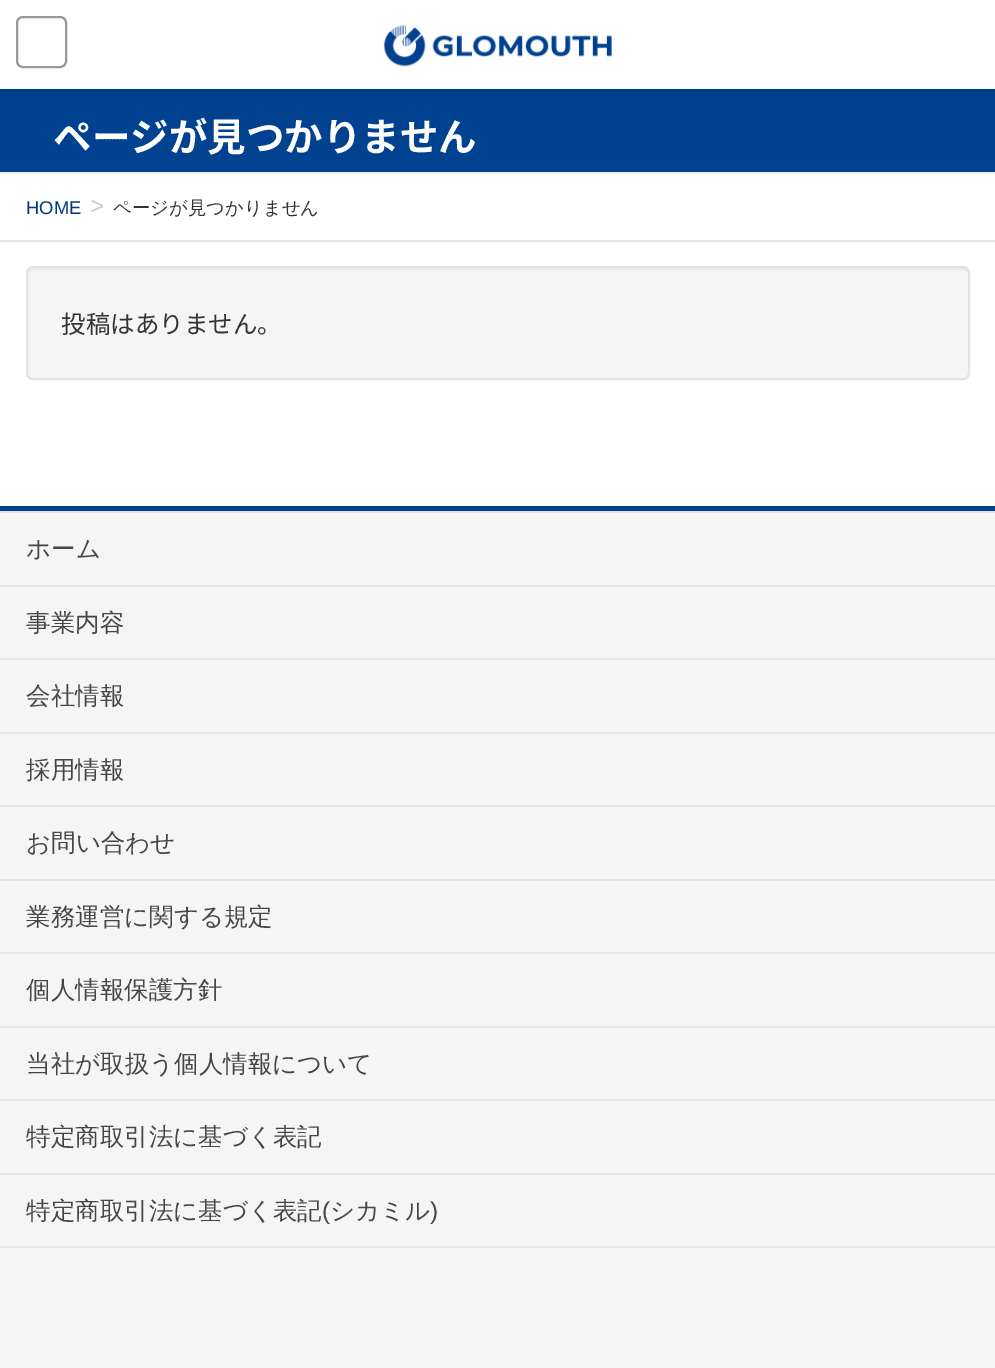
%!PS-Adobe-3.0
%%BoundingBox: 0 0 995 1368
%%LanguageLevel: 3
%%Pages: 1
%%EndComments
%%BeginProlog
/setink { 3 { 255 div 3 1 roll } repeat setrgbcolor } def
/usefont { [ exch dup neg 0 0 3 -1 roll 0 0 ] selectfont } def
/drawtext { setink usefont moveto show } def
/fillbox { setink rectfill } def
/setalpha { dup .setfillconstantalpha .setstrokeconstantalpha } def
/rrect { 5 dict begin { /r /h /w /y /x } { exch def } forall
  x r add y moveto x w add y 2 copy h add r arct x w add y h add x 1 index r arct
  x y h add x y r arct x y 2 copy exch w add exch r arct closepath end } def
/softshadow { 12 dict begin { /a /b /q /h /w /y /x } { exch def } forall gsave /was 0 def
  9 -2 -9 { dup b mul 4 div /e exch def 1 sub .425 mul 2.718 exch exp 1 add a .99 .min exch div /now exch def
    1 1 now sub 1 was sub div sub setalpha /was now def
    w h .min e 2 mul add 0 gt { x e sub y e sub w e 2 mul add h e 2 mul add
      q e add b .6 mul add w h .min 2 div e add .min 0 .max rrect fill } if } for grestore end } def
/drawimage { 5 dict begin { /h /w /y /x /name } { exch def } forall
  gsave x y translate w h scale
  w h 8 [w 0 0 h 0 0] name (r) file false 3 colorimage grestore end } def
%%EndProlog
%%BeginSetup
<< /PageSize [995 1368] /PageUsesTransparency true >> setpagedevice
%%EndSetup
%%Page: 1 1
0 .pushpdf14devicefilter
0 1368 translate 1 -1 scale
4 setmiterlimit
0 0 995 1368 255 255 255 fillbox
0 89 995 83 0 65 144 fillbox
0 0 0 setink
0 2 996 89 0 2.5 0.1 softshadow
0 0 995 89 255 255 255 fillbox
153 153 153 setink
2 setlinewidth
17 17 49 50 6 rrect stroke
(assets/img1.rgb) 383 25 229 42 drawimage
0 172 995 2 238 238 238 fillbox
(ページが見つかりません) 53 151 /NotoSansCJKJP-Bold 38.5 255 255 255 drawtext
0 240 995 2 229 229 229 fillbox
(HOME) 26 214 /LiberationSans-Regular 18.4 0 57 127 drawtext
(>) 90 214 /LiberationSans-Regular 24.5 204 204 204 drawtext
(ページが見つかりません) 113 214 /WenQuanYiZenHei-Medium 18.4 51 51 51 drawtext
245 245 245 setink
26 266 944 114 7 rrect fill
233 233 233 setink
33 270 moveto 962 270 lineto 965 270 968 272 968 275 curveto 968 272 967 268 963 268 curveto 33 268 lineto 29 268 28 272 28 275 curveto 28 272 30 270 33 270 curveto closepath fill
227 227 227 setink
27 267 942 112 6 rrect stroke
(投稿はありません。) 61 333 /NotoSansCJKJP-Regular 24.5 51 51 51 drawtext
0 513 995 855 245 245 245 fillbox
0 506 995 5 0 65 144 fillbox
0 511 995 2 229 229 229 fillbox
0 1246 995 2 229 229 229 fillbox
0 585 995 2 229 229 229 fillbox
(ホーム) 26 557 /WenQuanYiZenHei-Medium 24.5 70 70 70 drawtext
0 658 995 2 229 229 229 fillbox
(事業内容) 26 631 /WenQuanYiZenHei-Medium 24.5 70 70 70 drawtext
0 732 995 2 229 229 229 fillbox
(会社情報) 26 704 /WenQuanYiZenHei-Medium 24.5 70 70 70 drawtext
0 805 995 2 229 229 229 fillbox
(採用情報) 26 778 /WenQuanYiZenHei-Medium 24.5 70 70 70 drawtext
0 879 995 2 229 229 229 fillbox
(お問い合わせ) 26 851 /WenQuanYiZenHei-Medium 24.5 70 70 70 drawtext
0 952 995 2 229 229 229 fillbox
(業務運営に関する規定) 26 925 /WenQuanYiZenHei-Medium 24.5 70 70 70 drawtext
0 1026 995 2 229 229 229 fillbox
(個人情報保護方針) 26 998 /WenQuanYiZenHei-Medium 24.5 70 70 70 drawtext
0 1099 995 2 229 229 229 fillbox
(当社が取扱う個人情報について) 26 1072 /WenQuanYiZenHei-Medium 24.5 70 70 70 drawtext
0 1173 995 2 229 229 229 fillbox
(特定商取引法に基づく表記) 26 1145 /WenQuanYiZenHei-Medium 24.5 70 70 70 drawtext
(特定商取引法に基づく表記) 26 1219 /WenQuanYiZenHei-Medium 24.5 70 70 70 drawtext
(\() 322 1219 /LiberationSans-Regular 24.5 70 70 70 drawtext
(シカミル) 330 1219 /WenQuanYiZenHei-Medium 24.5 70 70 70 drawtext
(\)) 430 1219 /LiberationSans-Regular 24.5 70 70 70 drawtext
.poppdf14devicefilter showpage
%%EOF
